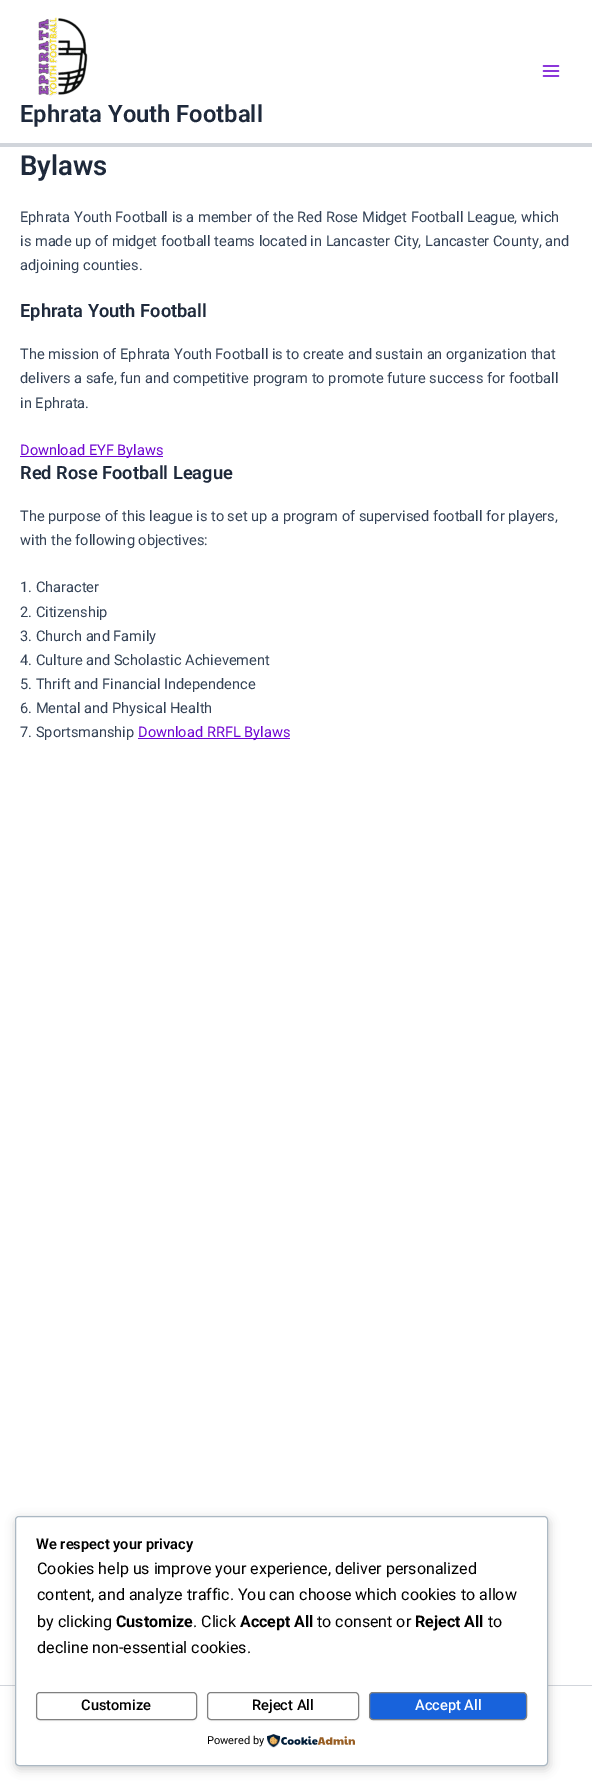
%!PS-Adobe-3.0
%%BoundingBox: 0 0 592 1786
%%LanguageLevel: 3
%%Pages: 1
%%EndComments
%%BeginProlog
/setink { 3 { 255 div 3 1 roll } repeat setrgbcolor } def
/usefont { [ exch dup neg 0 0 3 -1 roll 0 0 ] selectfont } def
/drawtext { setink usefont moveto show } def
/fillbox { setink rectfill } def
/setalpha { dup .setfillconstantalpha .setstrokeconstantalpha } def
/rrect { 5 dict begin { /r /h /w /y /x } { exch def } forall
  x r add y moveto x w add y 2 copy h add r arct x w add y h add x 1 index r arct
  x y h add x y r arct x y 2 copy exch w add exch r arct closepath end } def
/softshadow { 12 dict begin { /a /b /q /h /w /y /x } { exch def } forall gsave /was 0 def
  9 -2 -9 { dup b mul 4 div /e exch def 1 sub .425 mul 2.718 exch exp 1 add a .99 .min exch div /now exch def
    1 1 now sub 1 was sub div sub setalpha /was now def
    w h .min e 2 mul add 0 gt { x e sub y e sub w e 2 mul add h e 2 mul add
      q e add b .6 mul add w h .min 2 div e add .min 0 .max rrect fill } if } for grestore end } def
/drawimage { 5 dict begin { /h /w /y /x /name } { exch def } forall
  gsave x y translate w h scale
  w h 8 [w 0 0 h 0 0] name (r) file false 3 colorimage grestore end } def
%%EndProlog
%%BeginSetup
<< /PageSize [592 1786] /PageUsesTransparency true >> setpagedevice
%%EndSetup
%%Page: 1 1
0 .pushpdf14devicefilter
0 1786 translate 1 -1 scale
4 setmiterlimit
0 0 592 1786 255 255 255 fillbox
0 143 592 4 209 213 219 fillbox
(assets/img1.rgb) 542 65 18 12 drawimage
(assets/img2.rgb) 38 17 50 80 drawimage
(Ephrata Youth Football) 20 122 /Roboto-SemiBold 23.75 30 41 59 drawtext
(Bylaws) 20 175 /Roboto-SemiBold 27.5 30 41 59 drawtext
(Ephrata Youth Football is a member of the Red Rose Midget Football League, which) 20 222 /Roboto-Regular 14.6 51 65 85 drawtext
(is made up of midget football teams located in Lancaster City, Lancaster County, and) 20 246 /Roboto-Regular 14.6 51 65 85 drawtext
(adjoining counties.) 20 270 /Roboto-Regular 14.6 51 65 85 drawtext
(Ephrata Youth Football) 20 317 /Roboto-SemiBold 18.25 30 41 59 drawtext
(The mission of Ephrata Youth Football is to create and sustain an organization that) 20 359 /Roboto-Regular 14.6 51 65 85 drawtext
(delivers a safe, fun and competitive program to promote future success for football) 20 383 /Roboto-Regular 14.6 51 65 85 drawtext
(in Ephrata.) 20 408 /Roboto-Regular 14.6 51 65 85 drawtext
20 456 143 1 110 4 209 fillbox
(Download EYF Bylaws) 20 455 /Roboto-Regular 14.6 110 4 209 drawtext
(Red Rose Football League) 20 479 /Roboto-SemiBold 18.25 30 41 59 drawtext
(The purpose of this league is to set up a program of supervised football for players,) 20 521 /Roboto-Regular 14.6 51 65 85 drawtext
(with the following objectives:) 20 545 /Roboto-Regular 14.6 51 65 85 drawtext
(1. Character) 20 592 /Roboto-Regular 14.6 51 65 85 drawtext
(2. Citizenship) 20 617 /Roboto-Regular 14.6 51 65 85 drawtext
(3. Church and Family) 20 641 /Roboto-Regular 14.6 51 65 85 drawtext
(4. Culture and Scholastic Achievement) 20 665 /Roboto-Regular 14.6 51 65 85 drawtext
(5. Thrift and Financial Independence) 20 689 /Roboto-Regular 14.6 51 65 85 drawtext
(6. Mental and Physical Health) 20 713 /Roboto-Regular 14.6 51 65 85 drawtext
(7. Sportsmanship) 20 737 /Roboto-Regular 14.6 51 65 85 drawtext
138 738 152 1 110 4 209 fillbox
(Download RRFL Bylaws) 138 737 /Roboto-Regular 14.6 110 4 209 drawtext
0 1685 592 1 209 213 219 fillbox
0 0 0 setink
16 1519 533 250 4 5 0.2 softshadow
255 255 255 setink
15.5 1516.5 532 249 3.5 rrect gsave fill grestore
171 184 195 setink
stroke
(We respect your privacy) 36 1549 /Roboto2-SemiBold 14.6 0 0 0 drawtext
(Cookies help us improve your experience, deliver personalized) 37 1574 /Roboto-Regular 16 0 0 0 drawtext
(content, and analyze traffic. You can choose which cookies to allow) 37 1600 /Roboto-Regular 16 0 0 0 drawtext
(by clicking) 37 1627 /Roboto-Regular 16 0 0 0 drawtext
(Customize) 116 1627 /Roboto-Bold 16 0 0 0 drawtext
(. Click) 193 1627 /Roboto-Regular 16 0 0 0 drawtext
(Accept All) 240 1627 /Roboto-Bold 16 0 0 0 drawtext
(to consent or) 317 1627 /Roboto-Regular 16 0 0 0 drawtext
(Reject All) 415 1627 /Roboto-Bold 16 0 0 0 drawtext
(to) 488 1627 /Roboto-Regular 16 0 0 0 drawtext
(decline non-essential cookies.) 37 1653 /Roboto-Regular 16 0 0 0 drawtext
36 1693 161 28 4 1 0.05 softshadow
255 255 255 setink
36.5 1692.5 160 27 3.5 rrect gsave fill grestore
128 128 128 setink
stroke
(Customize) 81 1710 /Roboto-Medium 14.6 0 0 0 drawtext
207 1693 152 28 4 1 0.05 softshadow
255 255 255 setink
207.5 1692.5 151 27 3.5 rrect gsave fill grestore
128 128 128 setink
stroke
(Reject All) 252 1710 /Roboto-Medium 14.6 0 0 0 drawtext
369 1693 158 28 4 1 0.05 softshadow
24 99 220 setink
369.5 1692.5 157 27 3.5 rrect gsave fill grestore
128 128 128 setink
stroke
(Accept All) 415 1710 /Roboto-Medium 14.6 255 255 255 drawtext
(Powered by) 207 1744 /Roboto-Regular 11 0 0 0 drawtext
(assets/img3.rgb) 267 1734 88 14 drawimage
.poppdf14devicefilter showpage
%%EOF
